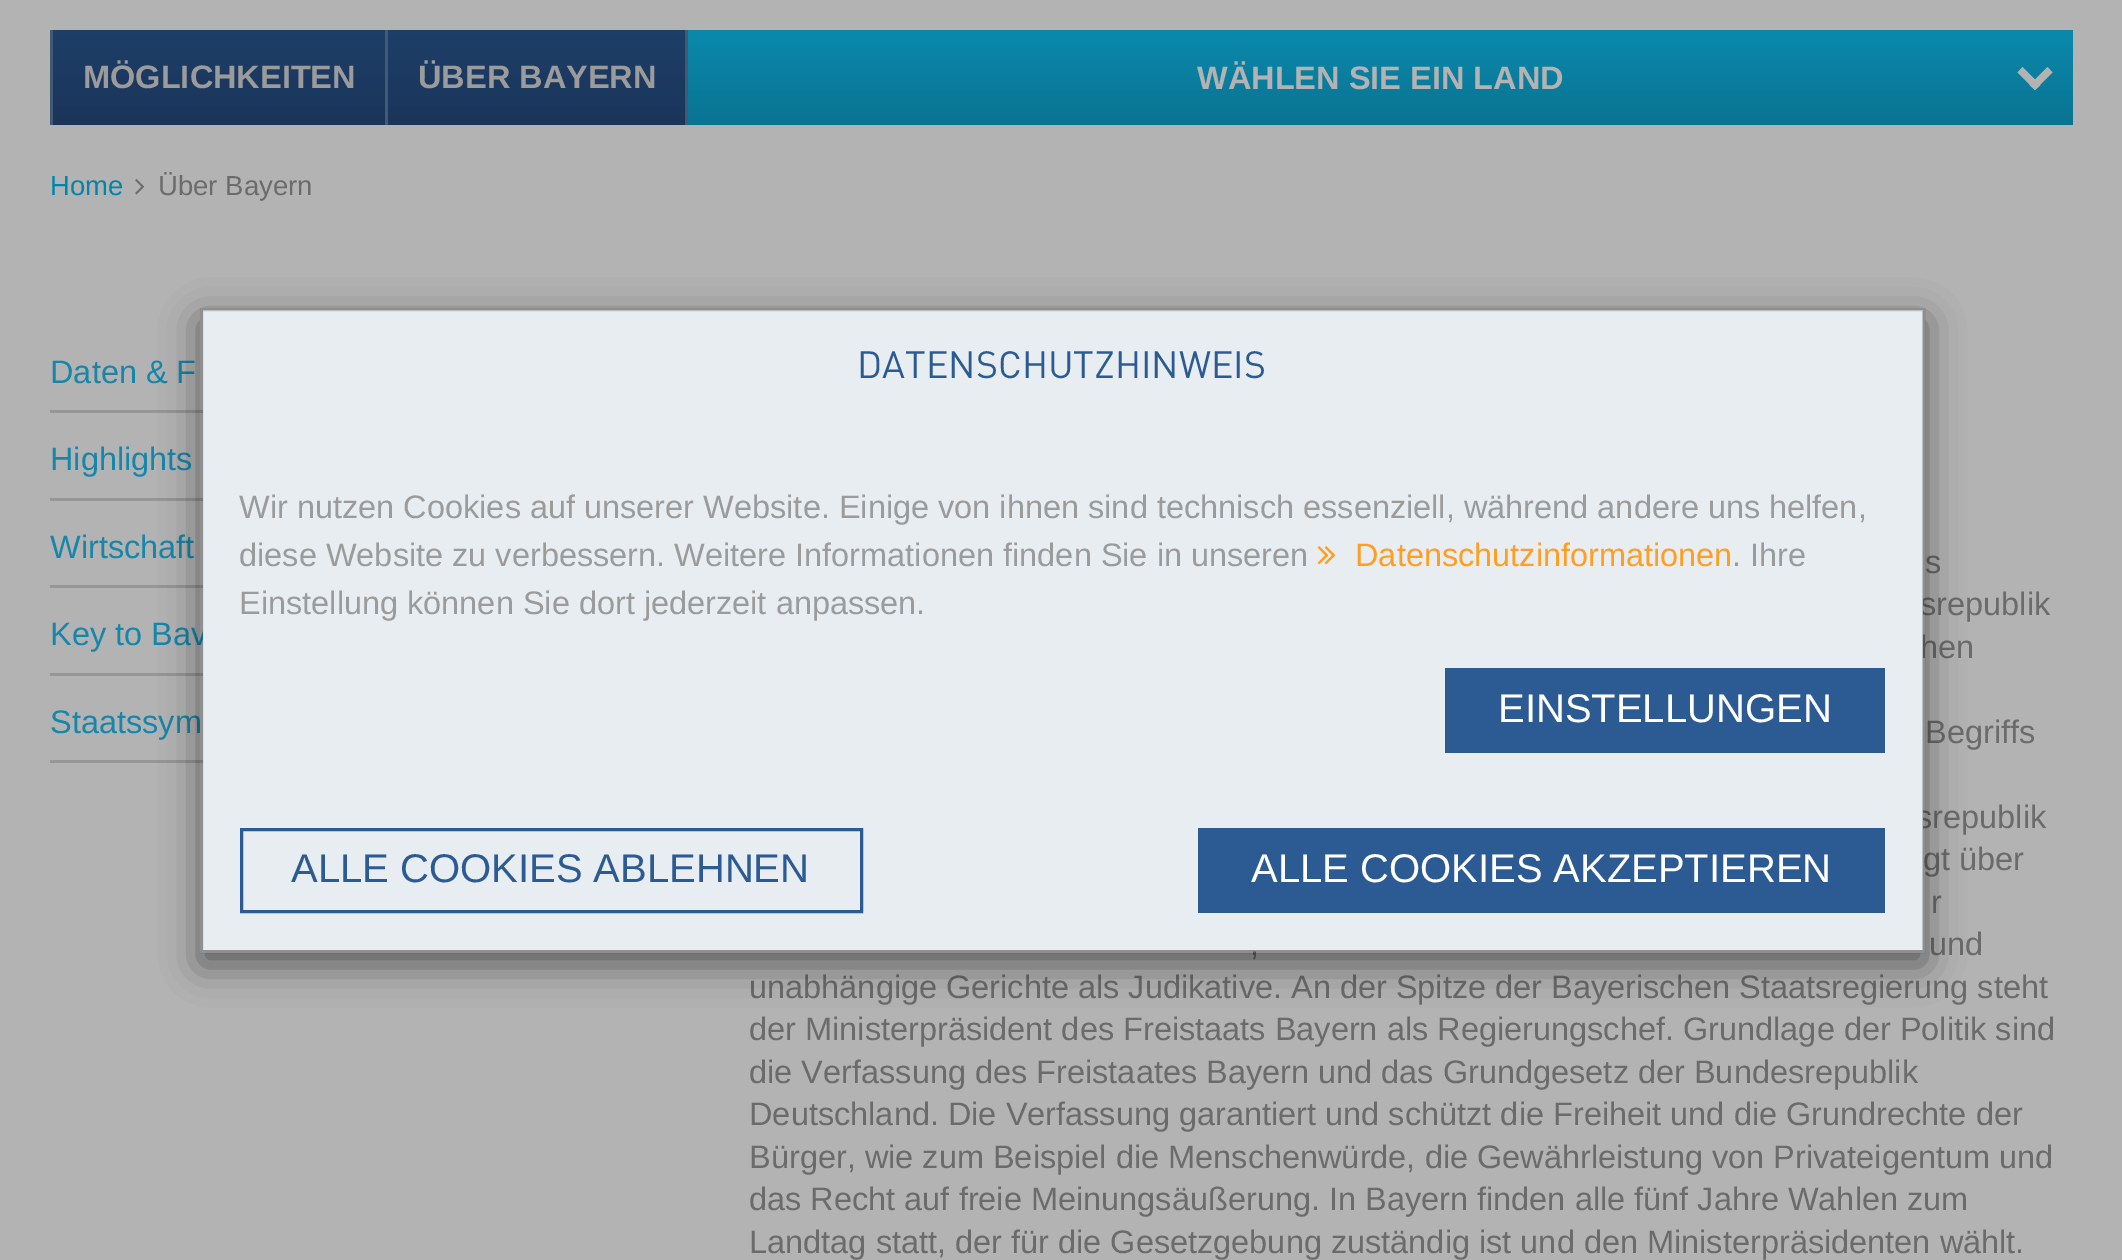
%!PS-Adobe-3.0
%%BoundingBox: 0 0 2122 1260
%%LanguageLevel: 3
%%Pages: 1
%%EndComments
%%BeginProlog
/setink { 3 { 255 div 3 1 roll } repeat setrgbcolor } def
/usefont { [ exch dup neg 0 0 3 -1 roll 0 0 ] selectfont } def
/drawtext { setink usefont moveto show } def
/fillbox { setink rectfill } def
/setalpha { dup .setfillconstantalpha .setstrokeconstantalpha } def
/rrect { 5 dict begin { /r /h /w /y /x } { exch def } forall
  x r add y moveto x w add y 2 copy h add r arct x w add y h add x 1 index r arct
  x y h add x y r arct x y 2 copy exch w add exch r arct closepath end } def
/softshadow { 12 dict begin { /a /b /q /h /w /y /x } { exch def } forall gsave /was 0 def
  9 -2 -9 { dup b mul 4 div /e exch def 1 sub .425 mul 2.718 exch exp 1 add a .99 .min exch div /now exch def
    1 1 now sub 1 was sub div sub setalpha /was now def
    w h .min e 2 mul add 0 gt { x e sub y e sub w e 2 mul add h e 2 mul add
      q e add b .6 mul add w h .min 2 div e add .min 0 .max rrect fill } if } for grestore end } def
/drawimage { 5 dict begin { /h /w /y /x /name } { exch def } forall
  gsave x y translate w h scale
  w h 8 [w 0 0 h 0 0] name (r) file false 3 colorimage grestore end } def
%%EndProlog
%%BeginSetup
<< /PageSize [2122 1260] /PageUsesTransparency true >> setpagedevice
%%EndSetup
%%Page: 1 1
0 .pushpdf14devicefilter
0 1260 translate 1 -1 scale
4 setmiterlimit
0 0 2122 1260 179 179 179 fillbox
gsave 53 30 moveto 385 30 lineto 385 125 lineto 53 125 lineto closepath clip newpath
<< /ShadingType 2 /ColorSpace /DeviceRGB /Coords [219 30 219 125] /Extend [true true] /Function << /FunctionType 2 /Domain [0 1] /C0 [0.114 0.247 0.408] /C1 [0.106 0.208 0.353] /N 1 >> >> shfill grestore
50 30 3 95 66 89 117 fillbox
(MÖGLICHKEITEN) 83 88 /LiberationSans-Bold 32.5 155 155 155 drawtext
gsave 388 30 moveto 685 30 lineto 685 125 lineto 388 125 lineto closepath clip newpath
<< /ShadingType 2 /ColorSpace /DeviceRGB /Coords [536 30 536 125] /Extend [true true] /Function << /FunctionType 2 /Domain [0 1] /C0 [0.114 0.247 0.408] /C1 [0.106 0.208 0.353] /N 1 >> >> shfill grestore
385 30 3 95 66 89 117 fillbox
(ÜBER BAYERN) 418 88 /LiberationSans-Bold 32.5 155 155 155 drawtext
gsave 688 30 moveto 2073 30 lineto 2073 125 lineto 688 125 lineto closepath clip newpath
<< /ShadingType 2 /ColorSpace /DeviceRGB /Coords [1380 30 1380 125] /Extend [true true] /Function << /FunctionType 2 /Domain [0 1] /C0 [0.043 0.537 0.675] /C1 [0.039 0.451 0.573] /N 1 >> >> shfill grestore
685 30 3 95 66 89 117 fillbox
(WÄHLEN SIE EIN LAND) 1197 89 /LiberationSans-Bold 32.5 179 179 179 drawtext
2047.5 67 moveto 2052.5 72.5 lineto 2035 90 lineto 2029.5 85 lineto closepath fill
2022.5 67 moveto 2040.5 85 lineto 2035 90 lineto 2017.5 72.5 lineto closepath fill
(Home) 50 195 /LiberationSans-Regular 27.5 0 133 172 drawtext
(assets/img1.rgb) 135 179 10 16 drawimage
(Über Bayern) 158 195 /LiberationSans-Regular 27.5 107 107 107 drawtext
50 410 153 3 150 150 150 fillbox
(Daten & F) 50 383 /LiberationSans-Regular 32.5 22 134 170 drawtext
50 498 153 3 150 150 150 fillbox
(Highlights) 50 470 /LiberationSans-Regular 32.5 22 134 170 drawtext
50 585 153 3 150 150 150 fillbox
(Wirtschaft) 50 558 /LiberationSans-Regular 32.5 22 134 170 drawtext
50 673 153 3 150 150 150 fillbox
(Key to Bav) 50 645 /LiberationSans-Regular 32.5 22 134 170 drawtext
50 760 153 3 150 150 150 fillbox
(Staatssym) 50 733 /LiberationSans-Regular 32.5 22 134 170 drawtext
(s) 1925 573 /LiberationSans-Regular 32.5 107 107 107 drawtext
(srepublik) 1920 615 /LiberationSans-Regular 32.5 107 107 107 drawtext
(hen) 1920 658 /LiberationSans-Regular 32.5 107 107 107 drawtext
(Begriffs) 1925 743 /LiberationSans-Regular 32.5 107 107 107 drawtext
(srepublik) 1916 828 /LiberationSans-Regular 32.5 107 107 107 drawtext
(gt über) 1923 870 /LiberationSans-Regular 32.5 107 107 107 drawtext
(r) 1931 913 /LiberationSans-Regular 32.5 107 107 107 drawtext
(,) 1250 955 /LiberationSans-Regular 32.5 107 107 107 drawtext
(und) 1929 955 /LiberationSans-Regular 32.5 107 107 107 drawtext
(unabhängige Gerichte als Judikative. An der Spitze der Bayerischen Staatsregierung steht) 749 998 /LiberationSans-Regular 32.5 107 107 107 drawtext
(der Ministerpräsident des Freistaats Bayern als Regierungschef. Grundlage der Politik sind) 749 1040 /LiberationSans-Regular 32.5 107 107 107 drawtext
(die Verfassung des Freistaates Bayern und das Grundgesetz der Bundesrepublik) 749 1083 /LiberationSans-Regular 32.5 107 107 107 drawtext
(Deutschland. Die Verfassung garantiert und schützt die Freiheit und die Grundrechte der) 749 1125 /LiberationSans-Regular 32.5 107 107 107 drawtext
(Bürger, wie zum Beispiel die Menschenwürde, die Gewährleistung von Privateigentum und) 749 1168 /LiberationSans-Regular 32.5 107 107 107 drawtext
(das Recht auf freie Meinungsäußerung. In Bayern finden alle fünf Jahre Wahlen zum) 749 1210 /LiberationSans-Regular 32.5 107 107 107 drawtext
(Landtag statt, der für die Gesetzgebung zuständig ist und den Ministerpräsidenten wählt.) 749 1253 /LiberationSans-Regular 32.5 107 107 107 drawtext
gsave
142 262 moveto 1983 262 lineto 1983 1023 lineto 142 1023 lineto closepath 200 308 moveto 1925 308 lineto 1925 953 lineto 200 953 lineto closepath eoclip newpath
0 0 0 setink
200 320 1725 645 0 19 0.5 softshadow
grestore
203 310 1720 640 232 237 241 fillbox
0.2 setalpha
0 0 0 setink
3 setlinewidth
201.5 309.5 1722 642 rectstroke
1 setalpha
(DATENSCHUTZHINWEIS) 857 378 /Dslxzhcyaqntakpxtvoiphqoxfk-Regular 37.5 44 90 147 drawtext
(Wir nutzen Cookies auf unserer Website. Einige von ihnen sind technisch essenziell, während andere uns helfen,) 239 518 /LiberationSans-Regular 32.5 155 155 155 drawtext
(diese Website zu verbessern. Weitere Informationen finden Sie in unseren) 239 566 /LiberationSans-Regular 32.5 155 155 155 drawtext
(assets/img2.rgb) 1317 546 19 19 drawimage
(Datenschutzinformationen) 1355 566 /LiberationSans-Regular 32.5 255 158 33 drawtext
(. Ihre) 1732 566 /LiberationSans-Regular 32.5 155 155 155 drawtext
(Einstellung können Sie dort jederzeit anpassen.) 239 614 /LiberationSans-Regular 32.5 155 155 155 drawtext
1445 668 440 85 44 90 147 fillbox
(EINSTELLUNGEN) 1498 722 /LiberationSans-Regular 40 255 255 255 drawtext
44 90 147 setink
241.5 829.5 620 82 rectstroke
(ALLE COOKIES ABLEHNEN) 291 882 /LiberationSans-Regular 40 44 90 147 drawtext
1198 828 687 85 44 90 147 fillbox
(ALLE COOKIES AKZEPTIEREN) 1251 882 /LiberationSans-Regular 40 255 255 255 drawtext
.poppdf14devicefilter showpage
%%EOF
